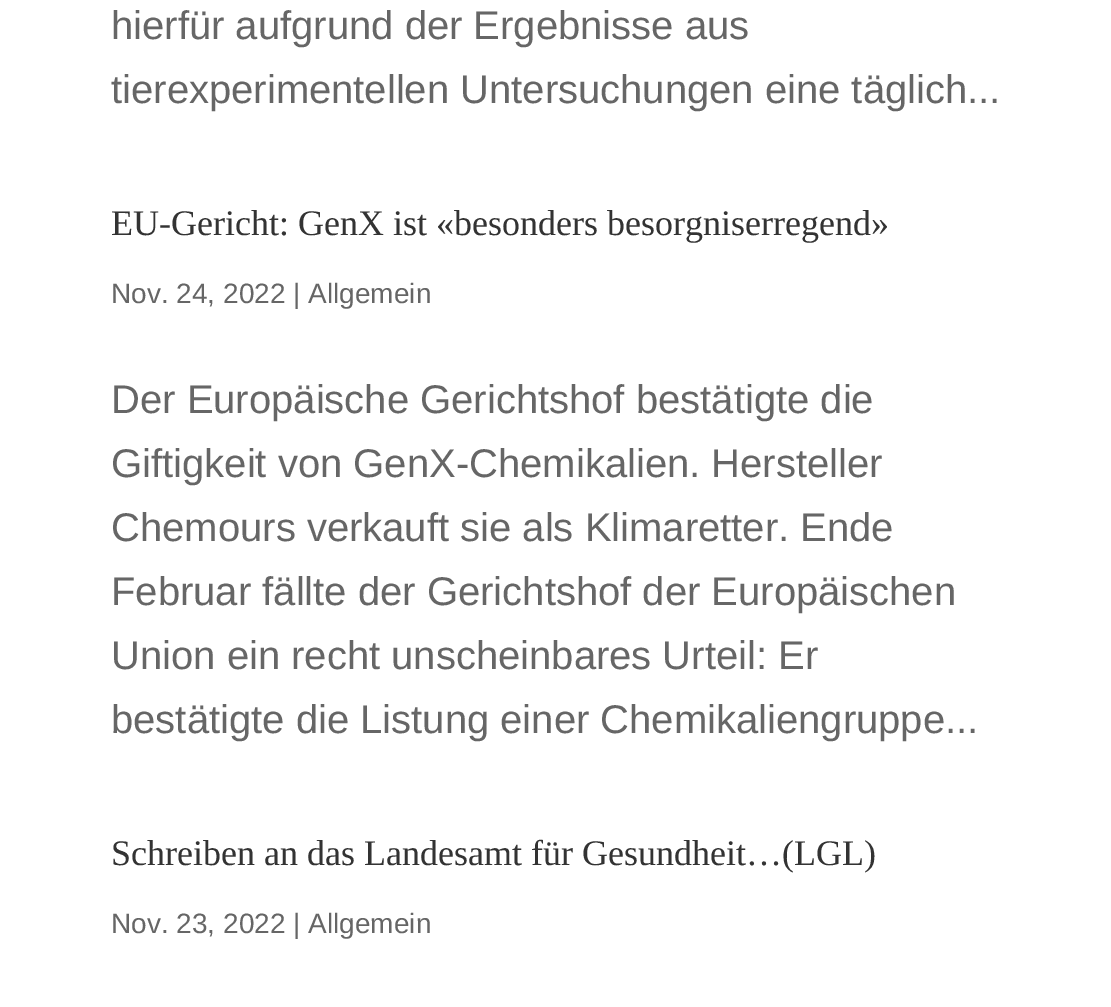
%!PS-Adobe-3.0
%%BoundingBox: 0 0 1111 1007
%%LanguageLevel: 3
%%Pages: 1
%%EndComments
%%BeginProlog
/setink { 3 { 255 div 3 1 roll } repeat setrgbcolor } def
/usefont { [ exch dup neg 0 0 3 -1 roll 0 0 ] selectfont } def
/drawtext { setink usefont moveto show } def
/fillbox { setink rectfill } def
%%EndProlog
%%BeginSetup
<< /PageSize [1111 1007] >> setpagedevice
%%EndSetup
%%Page: 1 1
0 1007 translate 1 -1 scale
4 setmiterlimit
0 0 1111 1007 255 255 255 fillbox
(hierfür aufgrund der Ergebnisse aus) 111 39 /LiberationSans-Regular 40 102 102 102 drawtext
(tierexperimentellen Untersuchungen eine täglich...) 111 103 /LiberationSans-Regular 40 102 102 102 drawtext
(EU-Gericht: GenX ist «besonders besorgniserregend») 111 235 /LiberationSerif-Regular 36 51 51 51 drawtext
(Nov. 24, 2022 | Allgemein) 111 303 /LiberationSans-Regular 28 102 102 102 drawtext
(Der Europäische Gerichtshof bestätigte die) 111 413 /LiberationSans-Regular 40 102 102 102 drawtext
(Giftigkeit von GenX-Chemikalien. Hersteller) 111 477 /LiberationSans-Regular 40 102 102 102 drawtext
(Chemours verkauft sie als Klimaretter. Ende) 111 541 /LiberationSans-Regular 40 102 102 102 drawtext
(Februar fällte der Gerichtshof der Europäischen) 111 605 /LiberationSans-Regular 40 102 102 102 drawtext
(Union ein recht unscheinbares Urteil: Er) 111 669 /LiberationSans-Regular 40 102 102 102 drawtext
(bestätigte die Listung einer Chemikaliengruppe...) 111 733 /LiberationSans-Regular 40 102 102 102 drawtext
(Schreiben an das Landesamt für Gesundheit…\(LGL\)) 111 865 /LiberationSerif-Regular 36 51 51 51 drawtext
(Nov. 23, 2022 | Allgemein) 111 933 /LiberationSans-Regular 28 102 102 102 drawtext
showpage
%%EOF
